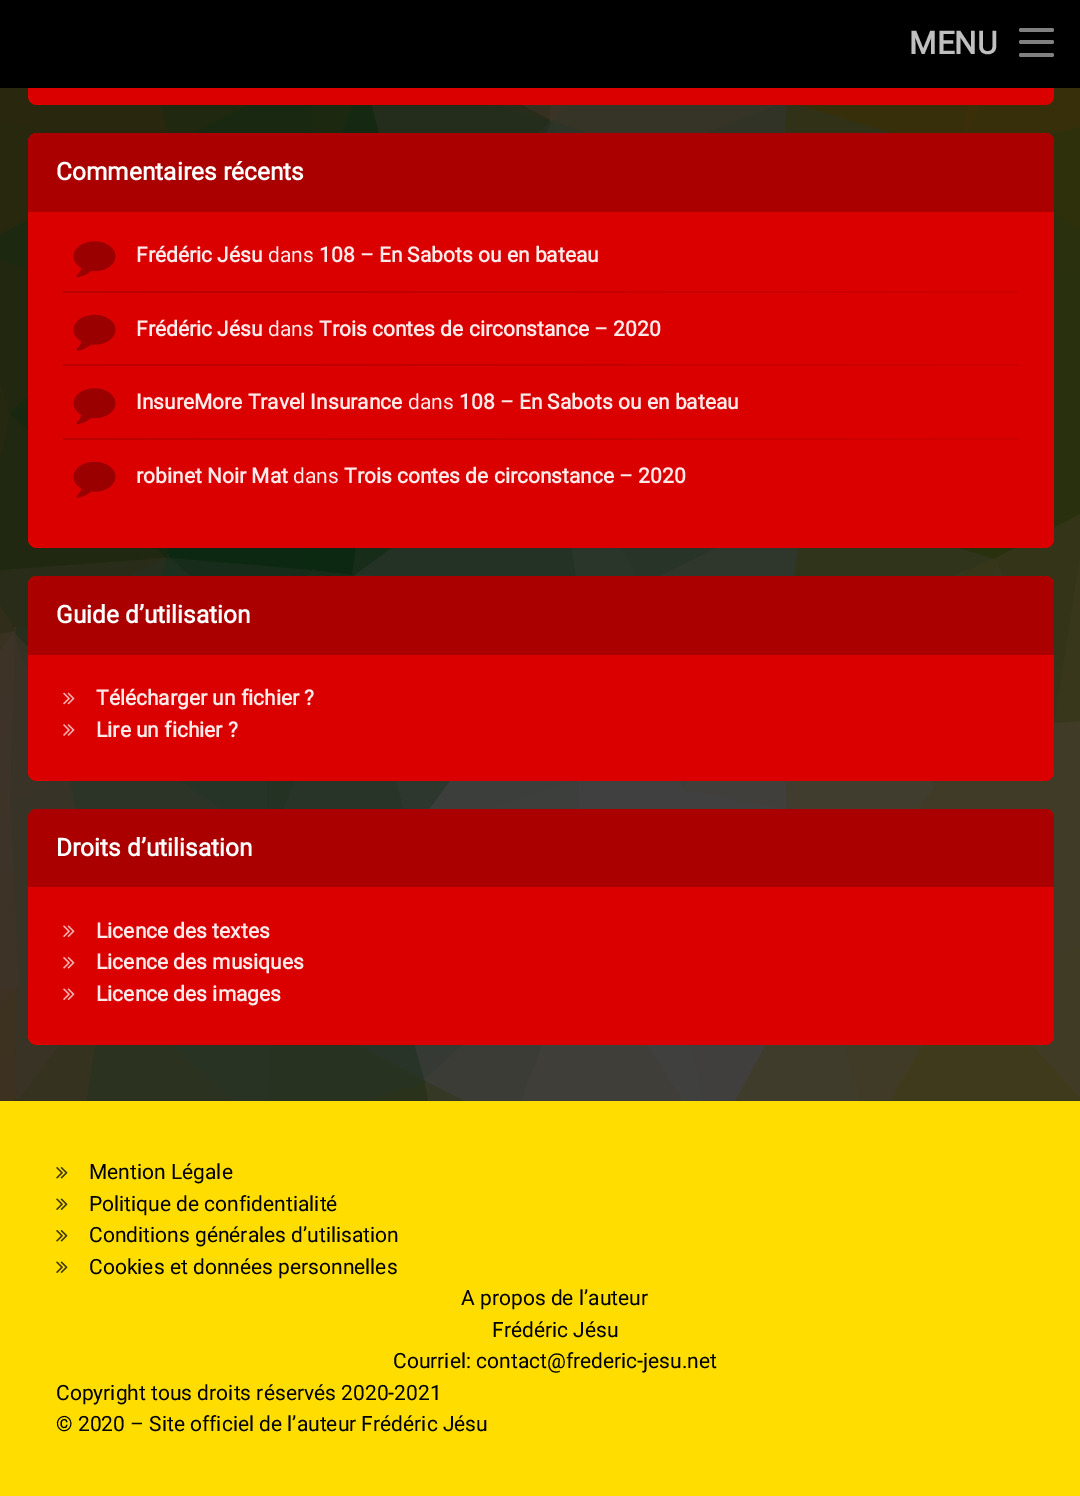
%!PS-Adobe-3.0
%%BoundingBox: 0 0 1080 1496
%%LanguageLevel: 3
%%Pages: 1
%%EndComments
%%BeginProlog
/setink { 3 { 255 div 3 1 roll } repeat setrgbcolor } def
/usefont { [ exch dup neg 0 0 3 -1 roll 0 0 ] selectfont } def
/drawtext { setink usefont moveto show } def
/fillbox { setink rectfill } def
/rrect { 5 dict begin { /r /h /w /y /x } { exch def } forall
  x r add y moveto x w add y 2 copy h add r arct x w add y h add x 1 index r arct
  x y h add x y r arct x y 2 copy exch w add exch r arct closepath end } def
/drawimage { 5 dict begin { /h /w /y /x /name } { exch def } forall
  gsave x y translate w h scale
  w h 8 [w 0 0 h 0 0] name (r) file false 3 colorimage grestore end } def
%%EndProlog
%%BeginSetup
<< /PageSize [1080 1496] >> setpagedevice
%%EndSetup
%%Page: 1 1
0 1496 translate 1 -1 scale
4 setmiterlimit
0 0 1080 1496 255 255 255 fillbox
(assets/img9.rgb) 0 88 1080 1013 drawimage
219 0 0 setink
28 -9 1026 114 9 rrect fill
0 0 1080 88 0 0 0 fillbox
(MENU) 909 54 /Roboto-Bold 31.5 191 191 191 drawtext
128 128 128 setink
1019 28 35 4 2 rrect fill
1019 40 35 4 2 rrect fill
1019 53 35 4 2 rrect fill
219 0 0 setink
28 133 1026 415 9 rrect fill
170 0 0 setink
37 133 moveto 1045 133 lineto 1050 133 1054 137 1054 142 curveto 1054 212 lineto 28 212 lineto 28 142 lineto 28 137 32 133 37 133 curveto closepath fill
(Commentaires récents) 56 180 /Roboto-Bold 24.5 255 255 255 drawtext
(assets/img1.rgb) 73 241 43 37 drawimage
(Frédéric Jésu) 136 262 /Roboto-Bold 21 255 234 234 drawtext
(dans) 268 262 /Roboto-Regular 21 255 234 234 drawtext
(108 – En Sabots ou en bateau) 319 262 /Roboto-Bold 21 255 234 234 drawtext
gsave 63 291 moveto 1019 291 lineto 1019 293 lineto 63 293 lineto closepath clip newpath
<< /ShadingType 2 /ColorSpace /DeviceRGB /Coords [63 291 1019 291] /Extend [true true] /Function << /FunctionType 2 /Domain [0 1] /C0 [0.729 0 0] /C1 [0.816 0 0] /N 1 >> >> shfill grestore
(assets/img2.rgb) 73 314 43 37 drawimage
(Frédéric Jésu) 136 336 /Roboto-Bold 21 255 234 234 drawtext
(dans) 268 336 /Roboto-Regular 21 255 234 234 drawtext
(Trois contes de circonstance – 2020) 319 336 /Roboto-Bold 21 255 234 234 drawtext
gsave 63 364 moveto 1019 364 lineto 1019 366 lineto 63 366 lineto closepath clip newpath
<< /ShadingType 2 /ColorSpace /DeviceRGB /Coords [63 365 1019 365] /Extend [true true] /Function << /FunctionType 2 /Domain [0 1] /C0 [0.729 0 0] /C1 [0.816 0 0] /N 1 >> >> shfill grestore
(assets/img1.rgb) 73 388 43 37 drawimage
(InsureMore Travel Insurance) 136 409 /Roboto-Bold 21 255 234 234 drawtext
(dans) 408 409 /Roboto-Regular 21 255 234 234 drawtext
(108 – En Sabots ou en bateau) 459 409 /Roboto-Bold 21 255 234 234 drawtext
gsave 63 438 moveto 1019 438 lineto 1019 440 lineto 63 440 lineto closepath clip newpath
<< /ShadingType 2 /ColorSpace /DeviceRGB /Coords [63 438 1019 438] /Extend [true true] /Function << /FunctionType 2 /Domain [0 1] /C0 [0.729 0 0] /C1 [0.816 0 0] /N 1 >> >> shfill grestore
(assets/img2.rgb) 73 461 43 37 drawimage
(robinet Noir Mat) 136 483 /Roboto-Bold 21 255 234 234 drawtext
(dans) 293 483 /Roboto-Regular 21 255 234 234 drawtext
(Trois contes de circonstance – 2020) 344 483 /Roboto-Bold 21 255 234 234 drawtext
219 0 0 setink
28 576 1026 205 9 rrect fill
170 0 0 setink
37 576 moveto 1045 576 lineto 1050 576 1054 580 1054 585 curveto 1054 655 lineto 28 655 lineto 28 585 lineto 28 580 32 576 37 576 curveto closepath fill
(Guide d’utilisation) 56 623 /Roboto-Bold 24.5 255 255 255 drawtext
(assets/img3.rgb) 63 692 12 13 drawimage
(Télécharger un fichier ?) 96 705 /Roboto-Bold 21 255 234 234 drawtext
(assets/img4.rgb) 63 724 12 12 drawimage
(Lire un fichier ?) 96 737 /Roboto-Bold 21 255 234 234 drawtext
219 0 0 setink
28 809 1026 236 9 rrect fill
170 0 0 setink
37 809 moveto 1045 809 lineto 1050 809 1054 813 1054 818 curveto 1054 887 lineto 28 887 lineto 28 818 lineto 28 813 32 809 37 809 curveto closepath fill
(Droits d’utilisation) 56 856 /Roboto-Bold 24.5 255 255 255 drawtext
(assets/img5.rgb) 63 925 12 12 drawimage
(Licence des textes) 96 938 /Roboto-Bold 21 255 234 234 drawtext
(assets/img6.rgb) 63 957 12 12 drawimage
(Licence des musiques) 96 969 /Roboto-Bold 21 255 234 234 drawtext
(assets/img5.rgb) 63 988 12 12 drawimage
(Licence des images) 96 1001 /Roboto-Bold 21 255 234 234 drawtext
0 1101 1080 395 255 221 0 fillbox
(assets/img7.rgb) 56 1167 12 12 drawimage
(Mention Légale) 89 1179 /Roboto-Regular 21 0 0 0 drawtext
(assets/img8.rgb) 56 1198 12 12 drawimage
(Politique de confidentialité) 89 1211 /Roboto-Regular 21 0 0 0 drawtext
(assets/img7.rgb) 56 1230 12 12 drawimage
(Conditions générales d’utilisation) 89 1242 /Roboto-Regular 21 0 0 0 drawtext
(assets/img8.rgb) 56 1261 12 12 drawimage
(Cookies et données personnelles) 89 1274 /Roboto-Regular 21 0 0 0 drawtext
(A propos de l’auteur) 461 1305 /Roboto-Regular 21 0 0 0 drawtext
(Frédéric Jésu) 492 1337 /Roboto-Regular 21 0 0 0 drawtext
(Courriel: contact@frederic-jesu.net) 393 1368 /Roboto-Regular 21 0 0 0 drawtext
(Copyright tous droits réservés 2020-2021) 56 1400 /Roboto-Regular 21 0 0 0 drawtext
(© 2020 – Site officiel de l’auteur Frédéric Jésu) 56 1431 /Roboto-Regular 21 0 0 0 drawtext
showpage
%%EOF
